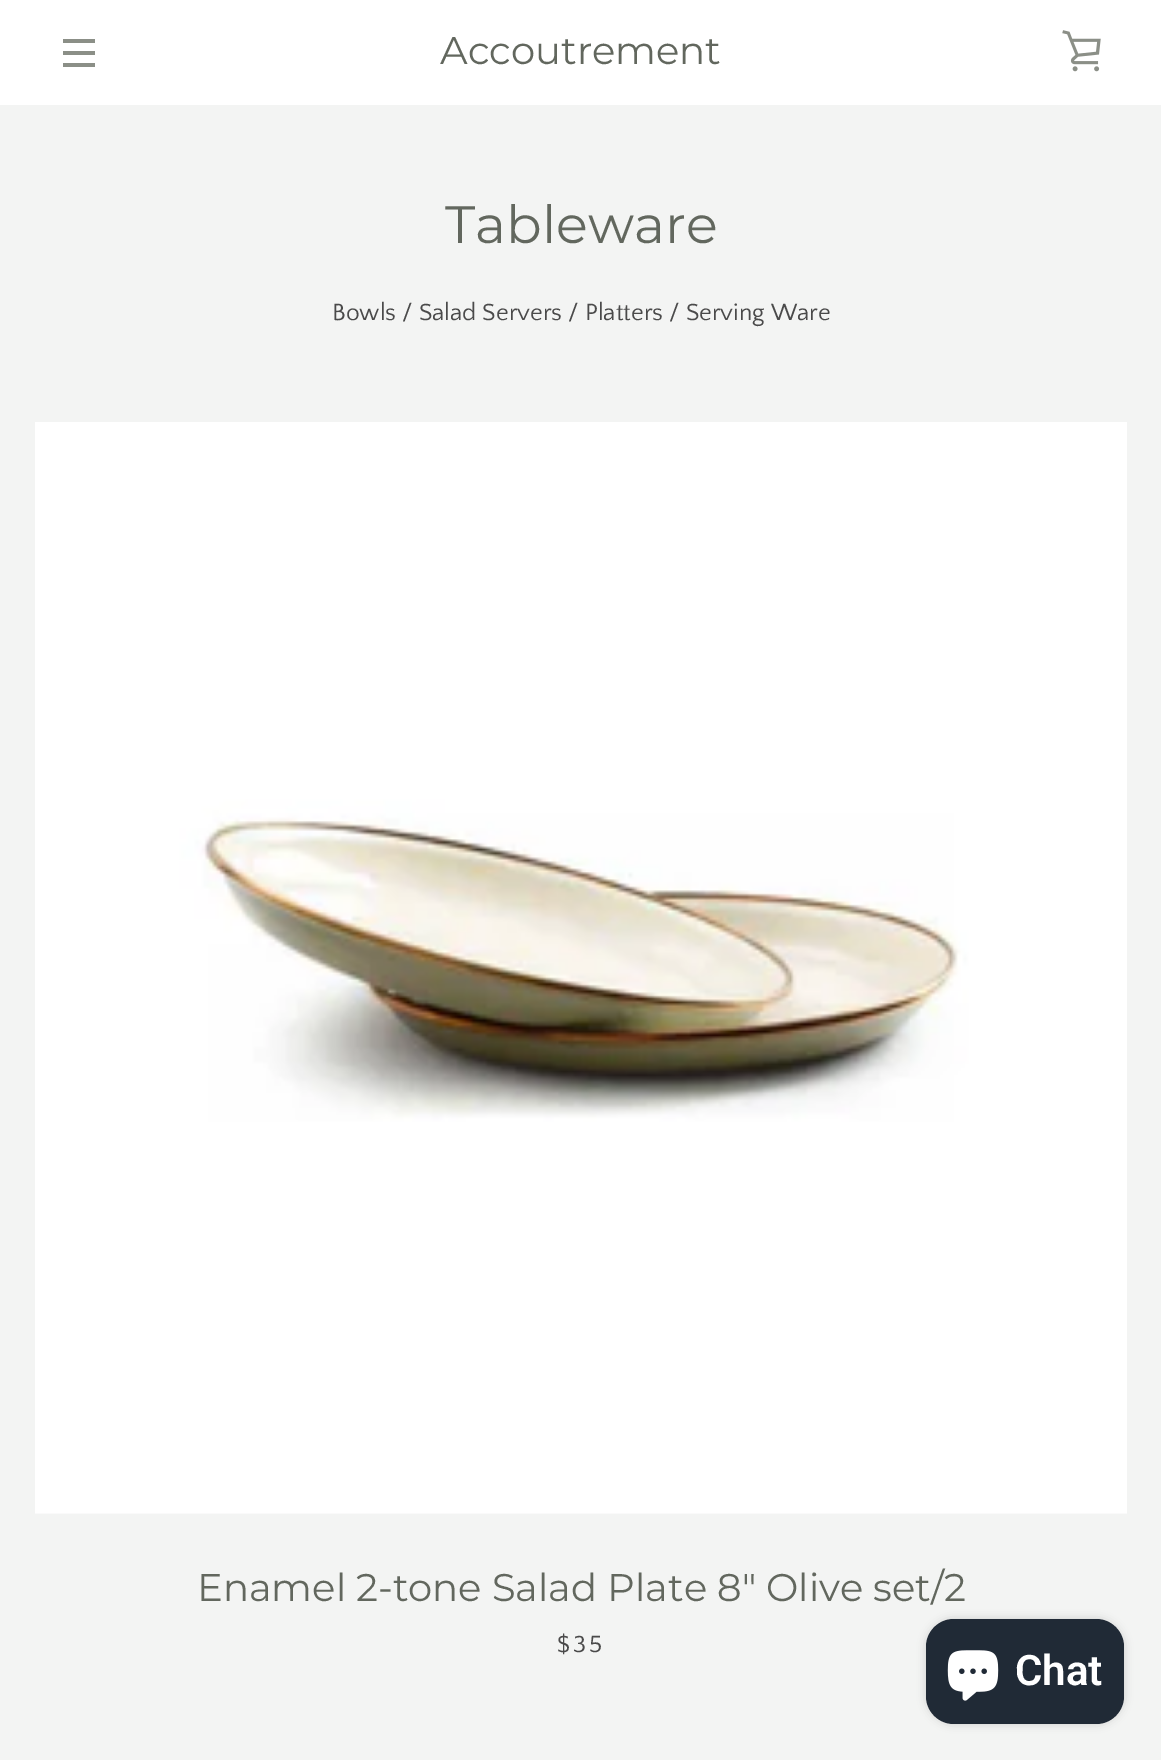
%!PS-Adobe-3.0
%%BoundingBox: 0 0 1161 1760
%%LanguageLevel: 3
%%Pages: 1
%%EndComments
%%BeginProlog
/setink { 3 { 255 div 3 1 roll } repeat setrgbcolor } def
/usefont { [ exch dup neg 0 0 3 -1 roll 0 0 ] selectfont } def
/drawtext { setink usefont moveto show } def
/fillbox { setink rectfill } def
/setalpha { dup .setfillconstantalpha .setstrokeconstantalpha } def
/rrect { 5 dict begin { /r /h /w /y /x } { exch def } forall
  x r add y moveto x w add y 2 copy h add r arct x w add y h add x 1 index r arct
  x y h add x y r arct x y 2 copy exch w add exch r arct closepath end } def
/softshadow { 12 dict begin { /a /b /q /h /w /y /x } { exch def } forall gsave /was 0 def
  9 -2 -9 { dup b mul 4 div /e exch def 1 sub .425 mul 2.718 exch exp 1 add a .99 .min exch div /now exch def
    1 1 now sub 1 was sub div sub setalpha /was now def
    w h .min e 2 mul add 0 gt { x e sub y e sub w e 2 mul add h e 2 mul add
      q e add b .6 mul add w h .min 2 div e add .min 0 .max rrect fill } if } for grestore end } def
/drawimage { 5 dict begin { /h /w /y /x /name } { exch def } forall
  gsave x y translate w h scale
  w h 8 [w 0 0 h 0 0] name (r) file false 3 colorimage grestore end } def
%%EndProlog
%%BeginSetup
<< /PageSize [1161 1760] /PageUsesTransparency true >> setpagedevice
%%EndSetup
%%Page: 1 1
0 .pushpdf14devicefilter
0 1760 translate 1 -1 scale
4 setmiterlimit
0 0 1161 1760 243 244 243 fillbox
0 0 1161 105 255 255 255 fillbox
63 39 32 4 139 143 135 fillbox
63 51 32 4 139 143 135 fillbox
63 63 32 4 139 143 135 fillbox
(Accoutrement) 440 64 /Montserrat-Regular 38.5 98 103 94 drawtext
(assets/img1.rgb) 1062 30 39 42 drawimage
(Tableware) 445 243 /Montserrat-Regular 52.5 98 103 94 drawtext
(Bowls / Salad Servers / Platters / Serving Ware) 332 320 /QuattrocentoSans-Regular 24.5 74 74 74 drawtext
(assets/img2.rgb) 35 422 1092 1092 drawimage
(Enamel 2-tone Salad Plate 8" Olive set/2) 197 1601 /Montserrat-Regular 38.5 98 103 94 drawtext
/QuattrocentoSans-Regular 24.5 usefont
74 74 74 setink
557 1652 moveto 3 0 ($35) ashow
0 0 0 setink
926 1619 198 105 28 4.5 0.15 softshadow
32 42 54 setink
926 1619 198 105 28 rrect fill
(assets/img3.rgb) 947 1650 52 51 drawimage
(Chat) 1015 1685 /Roboto-SemiBold 42 255 255 255 drawtext
.poppdf14devicefilter showpage
%%EOF
